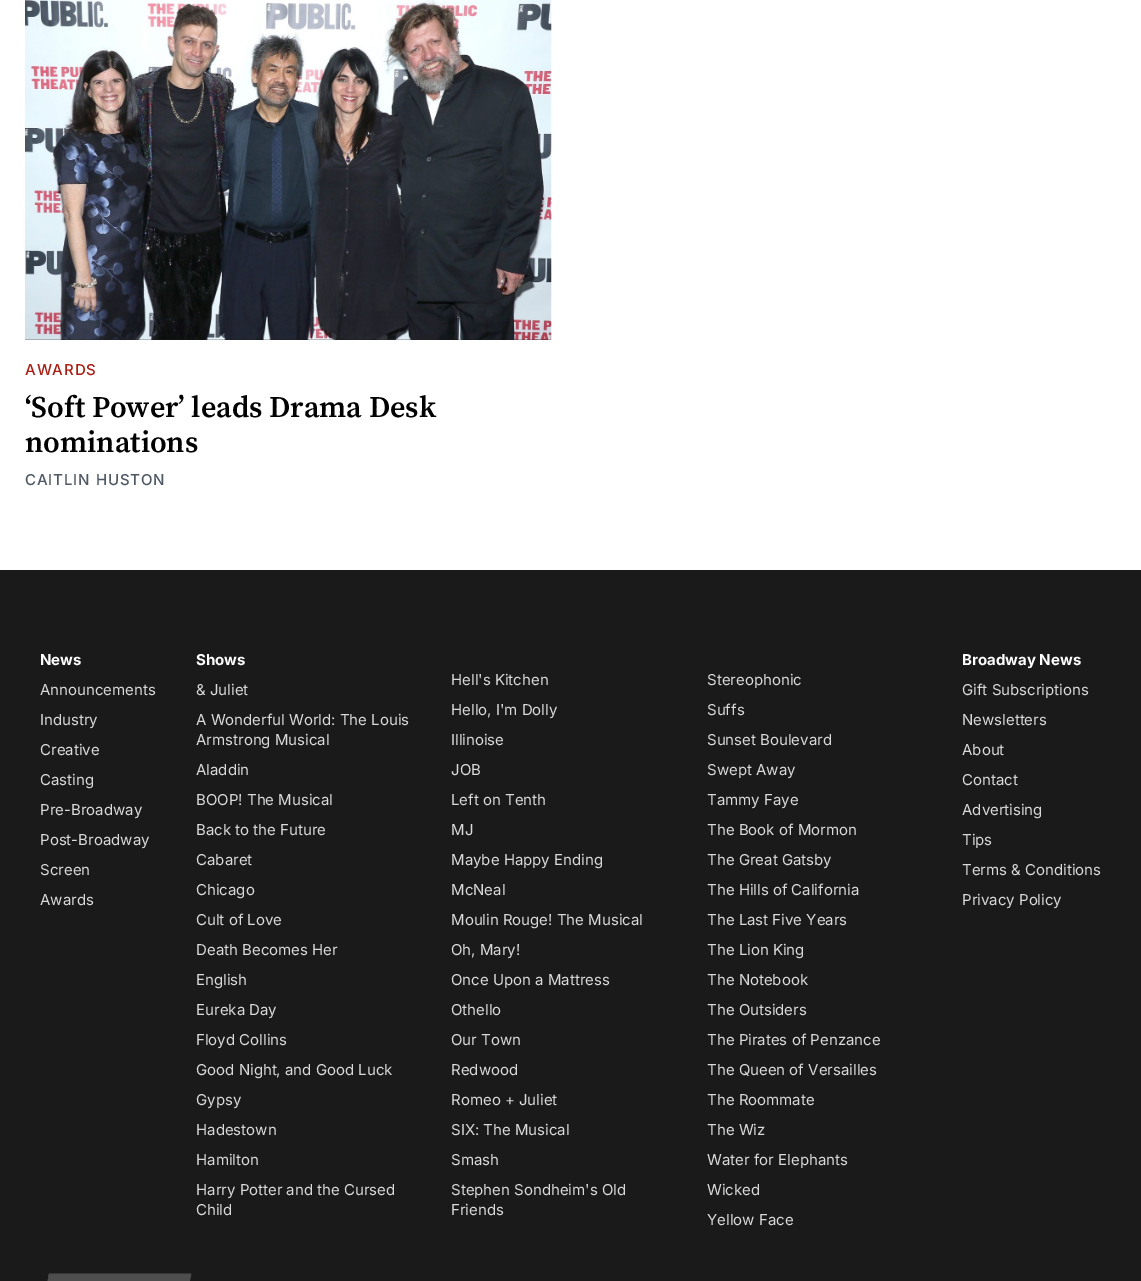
%!PS-Adobe-3.0
%%BoundingBox: 0 0 1141 1281
%%LanguageLevel: 3
%%Pages: 1
%%EndComments
%%BeginProlog
/setink { 3 { 255 div 3 1 roll } repeat setrgbcolor } def
/usefont { [ exch dup neg 0 0 3 -1 roll 0 0 ] selectfont } def
/drawtext { setink usefont moveto show } def
/fillbox { setink rectfill } def
/drawimage { 5 dict begin { /h /w /y /x /name } { exch def } forall
  gsave x y translate w h scale
  w h 8 [w 0 0 h 0 0] name (r) file false 3 colorimage grestore end } def
%%EndProlog
%%BeginSetup
<< /PageSize [1141 1281] >> setpagedevice
%%EndSetup
%%Page: 1 1
0 1281 translate 1 -1 scale
4 setmiterlimit
0 0 1141 1281 255 255 255 fillbox
(assets/img1.rgb) 25 0 527 340 drawimage
/Inter-Medium 15 usefont
169 31 22 setink
25 375 moveto 0.9 0 (AWARDS) ashow
(‘Soft Power’ leads Drama Desk) 25 417 /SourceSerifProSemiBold-SemiBold 30 0 0 0 drawtext
(nominations) 25 452 /SourceSerifProSemiBold-SemiBold 30 0 0 0 drawtext
/Inter-Medium 15 usefont
78 89 101 setink
25 485 moveto 0.9 0 (CAITLIN HUSTON) ashow
0 570 1141 711 26 26 26 fillbox
(News) 40 665 /Inter-Bold 15 255 255 255 drawtext
(Announcements) 40 695 /Inter-Regular 15 217 217 217 drawtext
(Industry) 40 725 /Inter-Regular 15 217 217 217 drawtext
(Creative) 40 755 /Inter-Regular 15 217 217 217 drawtext
(Casting) 40 785 /Inter-Regular 15 217 217 217 drawtext
(Pre-Broadway) 40 815 /Inter-Regular 15 217 217 217 drawtext
(Post-Broadway) 40 845 /Inter-Regular 15 217 217 217 drawtext
(Screen) 40 875 /Inter-Regular 15 217 217 217 drawtext
(Awards) 40 905 /Inter-Regular 15 217 217 217 drawtext
(Shows) 196 665 /Inter-Bold 15 255 255 255 drawtext
(& Juliet) 196 695 /Inter-Regular 15 217 217 217 drawtext
(Hell's Kitchen) 451 685 /Inter-Regular 15 217 217 217 drawtext
(Stereophonic) 707 685 /Inter-Regular 15 217 217 217 drawtext
(Hello, I'm Dolly) 451 715 /Inter-Regular 15 217 217 217 drawtext
(Suffs) 707 715 /Inter-Regular 15 217 217 217 drawtext
(A Wonderful World: The Louis) 196 725 /Inter-Regular 15 217 217 217 drawtext
(Armstrong Musical) 196 745 /Inter-Regular 15 217 217 217 drawtext
(Illinoise) 451 745 /Inter-Regular 15 217 217 217 drawtext
(Sunset Boulevard) 707 745 /Inter-Regular 15 217 217 217 drawtext
(Aladdin) 196 775 /Inter-Regular 15 217 217 217 drawtext
(JOB) 451 775 /Inter-Regular 15 217 217 217 drawtext
(Swept Away) 707 775 /Inter-Regular 15 217 217 217 drawtext
(BOOP! The Musical) 196 805 /Inter-Regular 15 217 217 217 drawtext
(Left on Tenth) 451 805 /Inter-Regular 15 217 217 217 drawtext
(Tammy Faye) 707 805 /Inter-Regular 15 217 217 217 drawtext
(Back to the Future) 196 835 /Inter-Regular 15 217 217 217 drawtext
(MJ) 451 835 /Inter-Regular 15 217 217 217 drawtext
(The Book of Mormon) 707 835 /Inter-Regular 15 217 217 217 drawtext
(Cabaret) 196 865 /Inter-Regular 15 217 217 217 drawtext
(Maybe Happy Ending) 451 865 /Inter-Regular 15 217 217 217 drawtext
(The Great Gatsby) 707 865 /Inter-Regular 15 217 217 217 drawtext
(Chicago) 196 895 /Inter-Regular 15 217 217 217 drawtext
(McNeal) 451 895 /Inter-Regular 15 217 217 217 drawtext
(The Hills of California) 707 895 /Inter-Regular 15 217 217 217 drawtext
(Cult of Love) 196 925 /Inter-Regular 15 217 217 217 drawtext
(Moulin Rouge! The Musical) 451 925 /Inter-Regular 15 217 217 217 drawtext
(The Last Five Years) 707 925 /Inter-Regular 15 217 217 217 drawtext
(Death Becomes Her) 196 955 /Inter-Regular 15 217 217 217 drawtext
(Oh, Mary!) 451 955 /Inter-Regular 15 217 217 217 drawtext
(The Lion King) 707 955 /Inter-Regular 15 217 217 217 drawtext
(English) 196 985 /Inter-Regular 15 217 217 217 drawtext
(Once Upon a Mattress) 451 985 /Inter-Regular 15 217 217 217 drawtext
(The Notebook) 707 985 /Inter-Regular 15 217 217 217 drawtext
(Eureka Day) 196 1015 /Inter-Regular 15 217 217 217 drawtext
(Othello) 451 1015 /Inter-Regular 15 217 217 217 drawtext
(The Outsiders) 707 1015 /Inter-Regular 15 217 217 217 drawtext
(Floyd Collins) 196 1045 /Inter-Regular 15 217 217 217 drawtext
(Our Town) 451 1045 /Inter-Regular 15 217 217 217 drawtext
(The Pirates of Penzance) 707 1045 /Inter-Regular 15 217 217 217 drawtext
(Good Night, and Good Luck) 196 1075 /Inter-Regular 15 217 217 217 drawtext
(Redwood) 451 1075 /Inter-Regular 15 217 217 217 drawtext
(The Queen of Versailles) 707 1075 /Inter-Regular 15 217 217 217 drawtext
(Gypsy) 196 1105 /Inter-Regular 15 217 217 217 drawtext
(Romeo + Juliet) 451 1105 /Inter-Regular 15 217 217 217 drawtext
(The Roommate) 707 1105 /Inter-Regular 15 217 217 217 drawtext
(Hadestown) 196 1135 /Inter-Regular 15 217 217 217 drawtext
(SIX: The Musical) 451 1135 /Inter-Regular 15 217 217 217 drawtext
(The Wiz) 707 1135 /Inter-Regular 15 217 217 217 drawtext
(Hamilton) 196 1165 /Inter-Regular 15 217 217 217 drawtext
(Smash) 451 1165 /Inter-Regular 15 217 217 217 drawtext
(Water for Elephants) 707 1165 /Inter-Regular 15 217 217 217 drawtext
(Harry Potter and the Cursed) 196 1195 /Inter-Regular 15 217 217 217 drawtext
(Child) 196 1215 /Inter-Regular 15 217 217 217 drawtext
(Stephen Sondheim's Old) 451 1195 /Inter-Regular 15 217 217 217 drawtext
(Friends) 451 1215 /Inter-Regular 15 217 217 217 drawtext
(Wicked) 707 1195 /Inter-Regular 15 217 217 217 drawtext
(Yellow Face) 707 1225 /Inter-Regular 15 217 217 217 drawtext
(Broadway News) 962 665 /Inter-Bold 15 255 255 255 drawtext
(Gift Subscriptions) 962 695 /Inter-Regular 15 217 217 217 drawtext
(Newsletters) 962 725 /Inter-Regular 15 217 217 217 drawtext
(About) 962 755 /Inter-Regular 15 217 217 217 drawtext
(Contact) 962 785 /Inter-Regular 15 217 217 217 drawtext
(Advertising) 962 815 /Inter-Regular 15 217 217 217 drawtext
(Tips) 962 845 /Inter-Regular 15 217 217 217 drawtext
(Terms & Conditions) 962 875 /Inter-Regular 15 217 217 217 drawtext
(Privacy Policy) 962 905 /Inter-Regular 15 217 217 217 drawtext
(assets/img2.rgb) 47 1273 145 8 drawimage
showpage
%%EOF
